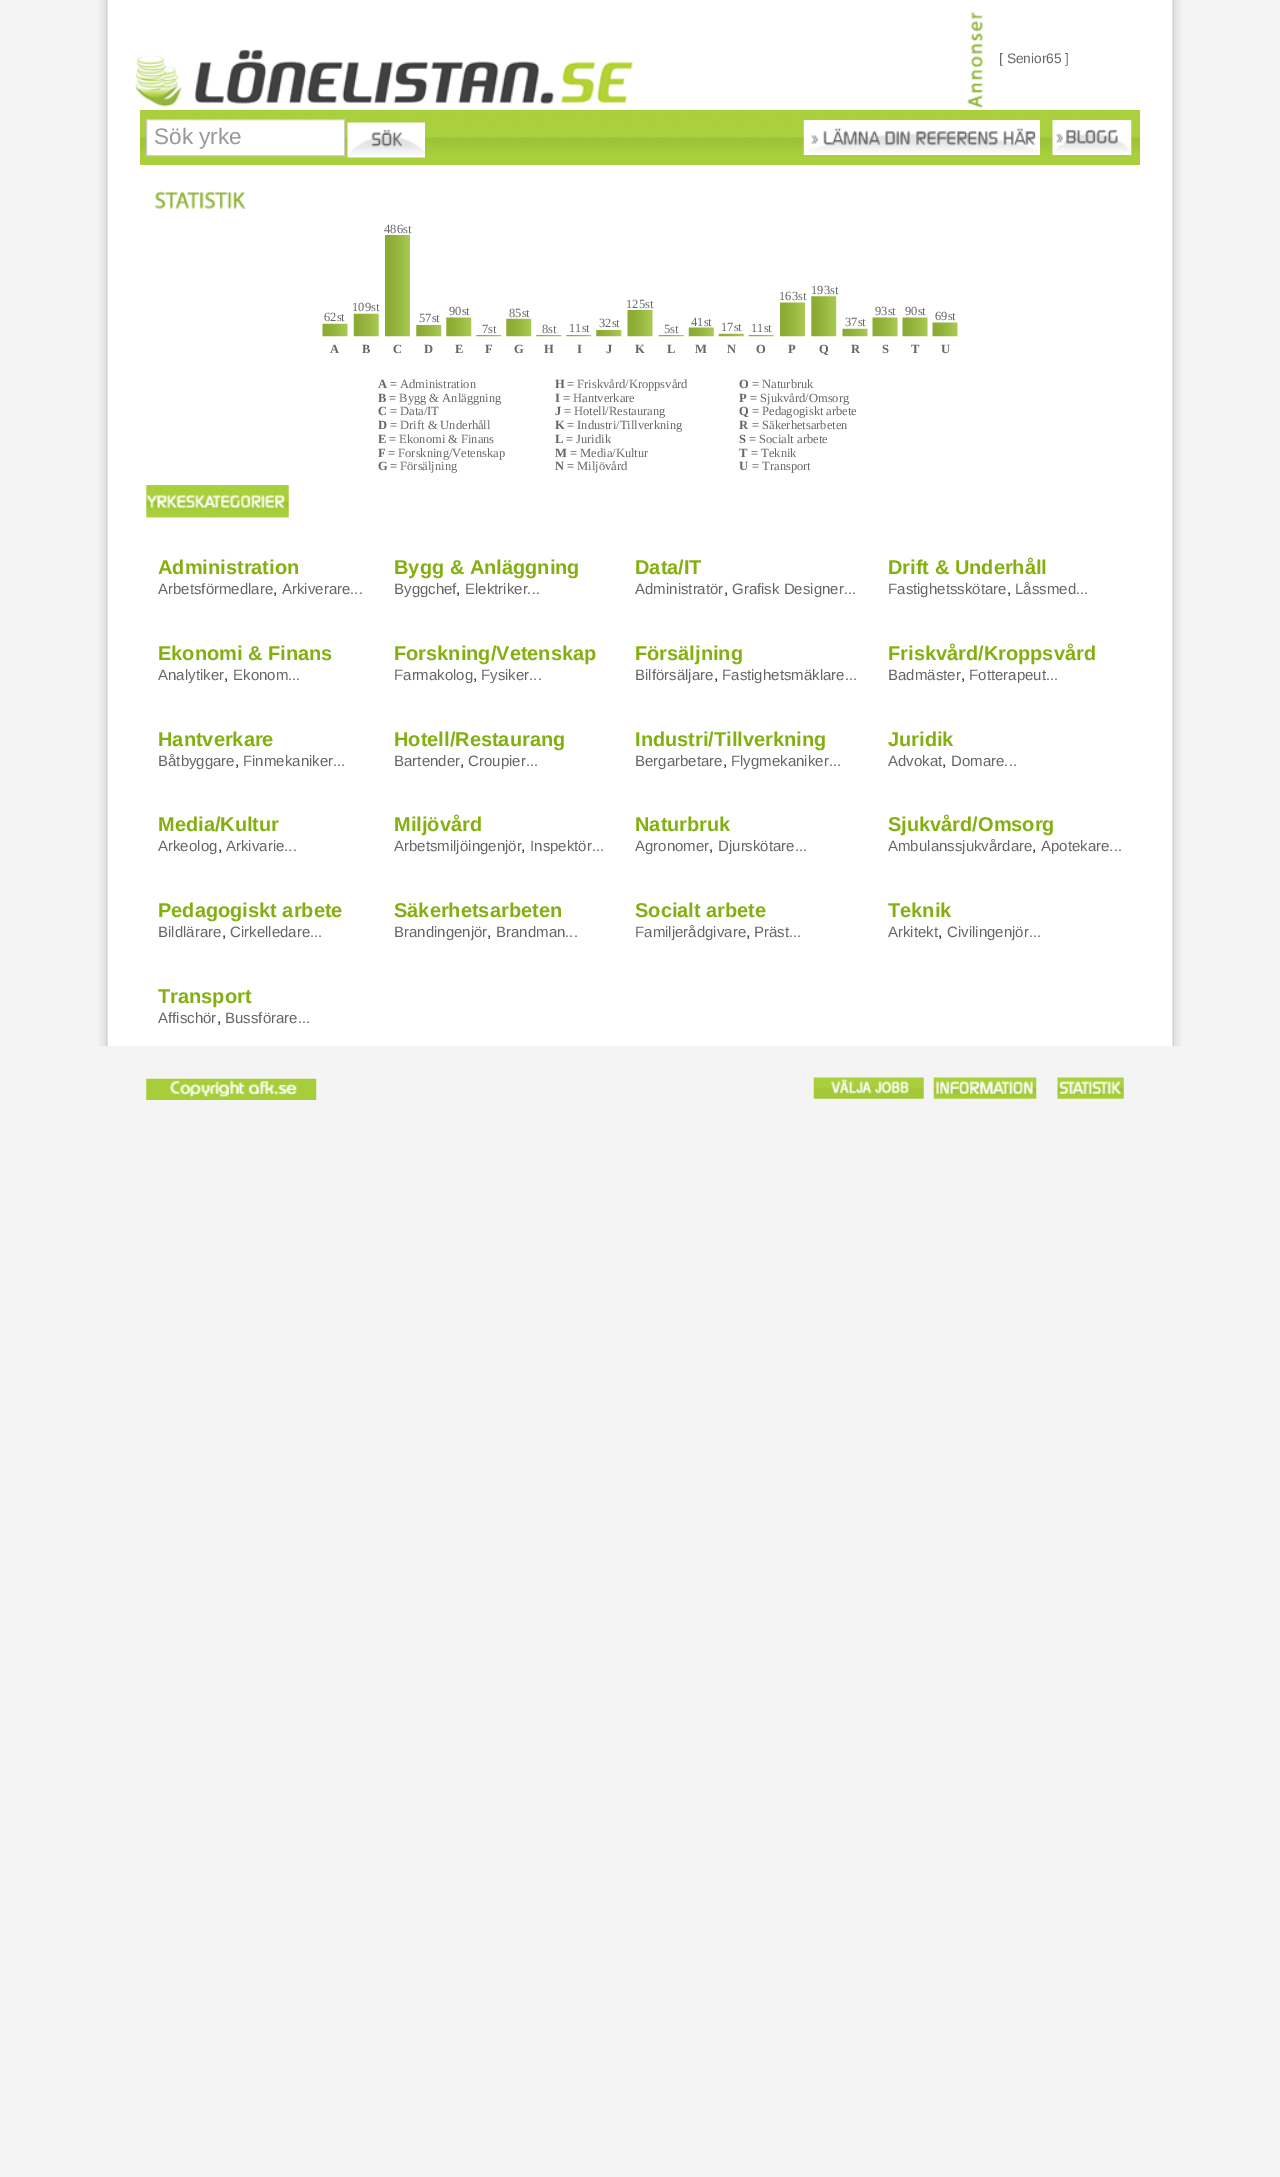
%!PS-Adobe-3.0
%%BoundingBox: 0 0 1280 2177
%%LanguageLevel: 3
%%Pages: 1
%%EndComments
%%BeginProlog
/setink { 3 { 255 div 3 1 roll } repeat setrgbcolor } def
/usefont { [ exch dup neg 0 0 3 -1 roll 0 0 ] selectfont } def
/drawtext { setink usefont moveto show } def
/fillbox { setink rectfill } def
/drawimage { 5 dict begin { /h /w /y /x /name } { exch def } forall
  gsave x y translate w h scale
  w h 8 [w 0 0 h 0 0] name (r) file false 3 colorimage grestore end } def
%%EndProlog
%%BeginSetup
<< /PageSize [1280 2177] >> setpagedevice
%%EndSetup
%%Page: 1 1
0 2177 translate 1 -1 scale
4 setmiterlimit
0 0 1280 2177 244 244 244 fillbox
(assets/img1.rgb) 99 0 1082 1047 drawimage
(assets/img2.rgb) 135 49 498 58 drawimage
(assets/img3.rgb) 967 12 16 96 drawimage
([ Senior65 ]) 999 63 /LiberationSans-Regular 13.75 102 102 102 drawtext
(assets/img4.rgb) 140 110 1000 55 drawimage
255 255 255 setink
146.5 119.5 moveto 344.5 119.5 lineto 344.5 155.5 lineto 146.5 155.5 lineto closepath gsave fill grestore
204 204 204 setink
stroke
(Sök yrke) 154 144 /LiberationSans-Regular 22.5 153 153 153 drawtext
(assets/img5.rgb) 347 122 78 36 drawimage
(assets/img6.rgb) 803 120 237 35 drawimage
(assets/img7.rgb) 1052 120 80 35 drawimage
(assets/img8.rgb) 154 191 92 18 drawimage
(486st) 384 233 /LiberationSerif-Regular 12.5 102 102 102 drawtext
(assets/img9.rgb) 385 235 25 102 drawimage
(193st) 811 294 /LiberationSerif-Regular 12.5 102 102 102 drawtext
(assets/img10.rgb) 811 296 26 41 drawimage
(163st) 779 300 /LiberationSerif-Regular 12.5 102 102 102 drawtext
(assets/img11.rgb) 780 302 25 35 drawimage
(62st) 324 321 /LiberationSerif-Regular 12.5 102 102 102 drawtext
(assets/img12.rgb) 322 323 26 14 drawimage
(109st) 352 311 /LiberationSerif-Regular 12.5 102 102 102 drawtext
(assets/img13.rgb) 353 313 26 24 drawimage
(57st) 419 322 /LiberationSerif-Regular 12.5 102 102 102 drawtext
(assets/img14.rgb) 416 325 26 12 drawimage
(90st) 449 315 /LiberationSerif-Regular 12.5 102 102 102 drawtext
(assets/img15.rgb) 446 317 26 20 drawimage
(7st) 482 333 /LiberationSerif-Regular 12.5 102 102 102 drawtext
(assets/img16.rgb) 476 335 26 2 drawimage
(85st) 509 317 /LiberationSerif-Regular 12.5 102 102 102 drawtext
(assets/img17.rgb) 506 318 26 19 drawimage
(8st) 542 333 /LiberationSerif-Regular 12.5 102 102 102 drawtext
(assets/img16.rgb) 536 335 26 2 drawimage
(11st) 569 332 /LiberationSerif-Regular 12.5 102 102 102 drawtext
(assets/img16.rgb) 566 335 26 2 drawimage
(32st) 599 327 /LiberationSerif-Regular 12.5 102 102 102 drawtext
(assets/img18.rgb) 596 330 26 7 drawimage
(125st) 626 308 /LiberationSerif-Regular 12.5 102 102 102 drawtext
(assets/img19.rgb) 627 310 26 27 drawimage
(5st) 664 333 /LiberationSerif-Regular 12.5 102 102 102 drawtext
(assets/img20.rgb) 658 335 26 2 drawimage
(41st) 691 326 /LiberationSerif-Regular 12.5 102 102 102 drawtext
(assets/img21.rgb) 688 327 26 10 drawimage
(17st) 721 331 /LiberationSerif-Regular 12.5 102 102 102 drawtext
(assets/img22.rgb) 718 333 26 4 drawimage
(11st) 751 332 /LiberationSerif-Regular 12.5 102 102 102 drawtext
(assets/img23.rgb) 748 335 26 2 drawimage
(37st) 845 326 /LiberationSerif-Regular 12.5 102 102 102 drawtext
(assets/img24.rgb) 842 328 26 9 drawimage
(93st) 875 315 /LiberationSerif-Regular 12.5 102 102 102 drawtext
(assets/img25.rgb) 872 317 26 20 drawimage
(90st) 905 315 /LiberationSerif-Regular 12.5 102 102 102 drawtext
(assets/img25.rgb) 902 317 26 20 drawimage
(69st) 935 320 /LiberationSerif-Regular 12.5 102 102 102 drawtext
(assets/img26.rgb) 932 322 26 15 drawimage
(A) 330 353 /LiberationSerif-Bold 12.5 102 102 102 drawtext
(B) 362 353 /LiberationSerif-Bold 12.5 102 102 102 drawtext
(C) 393 353 /LiberationSerif-Bold 12.5 102 102 102 drawtext
(D) 424 353 /LiberationSerif-Bold 12.5 102 102 102 drawtext
(E) 455 353 /LiberationSerif-Bold 12.5 102 102 102 drawtext
(F) 485 353 /LiberationSerif-Bold 12.5 102 102 102 drawtext
(G) 514 353 /LiberationSerif-Bold 12.5 102 102 102 drawtext
(H) 544 353 /LiberationSerif-Bold 12.5 102 102 102 drawtext
(I) 577 353 /LiberationSerif-Bold 12.5 102 102 102 drawtext
(J) 606 353 /LiberationSerif-Bold 12.5 102 102 102 drawtext
(K) 635 353 /LiberationSerif-Bold 12.5 102 102 102 drawtext
(L) 667 353 /LiberationSerif-Bold 12.5 102 102 102 drawtext
(M) 695 353 /LiberationSerif-Bold 12.5 102 102 102 drawtext
(N) 727 353 /LiberationSerif-Bold 12.5 102 102 102 drawtext
(O) 756 353 /LiberationSerif-Bold 12.5 102 102 102 drawtext
(P) 788 353 /LiberationSerif-Bold 12.5 102 102 102 drawtext
(Q) 819 353 /LiberationSerif-Bold 12.5 102 102 102 drawtext
(R) 851 353 /LiberationSerif-Bold 12.5 102 102 102 drawtext
(S) 882 353 /LiberationSerif-Bold 12.5 102 102 102 drawtext
(T) 911 353 /LiberationSerif-Bold 12.5 102 102 102 drawtext
(U) 941 353 /LiberationSerif-Bold 12.5 102 102 102 drawtext
(A) 378 388 /LiberationSerif-Bold 12.5 102 102 102 drawtext
(= Administration) 390 388 /LiberationSerif-Regular 12.5 102 102 102 drawtext
(B) 378 402 /LiberationSerif-Bold 12.5 102 102 102 drawtext
(= Bygg & Anläggning) 389 402 /LiberationSerif-Regular 12.5 102 102 102 drawtext
(C) 378 415 /LiberationSerif-Bold 12.5 102 102 102 drawtext
(= Data/IT) 390 415 /LiberationSerif-Regular 12.5 102 102 102 drawtext
(D) 378 429 /LiberationSerif-Bold 12.5 102 102 102 drawtext
(= Drift & Underhåll) 390 429 /LiberationSerif-Regular 12.5 102 102 102 drawtext
(E) 378 443 /LiberationSerif-Bold 12.5 102 102 102 drawtext
(= Ekonomi & Finans) 389 443 /LiberationSerif-Regular 12.5 102 102 102 drawtext
(F) 378 457 /LiberationSerif-Bold 12.5 102 102 102 drawtext
(= Forskning/Vetenskap) 388 457 /LiberationSerif-Regular 12.5 102 102 102 drawtext
(G) 378 470 /LiberationSerif-Bold 12.5 102 102 102 drawtext
(= Försäljning) 390 470 /LiberationSerif-Regular 12.5 102 102 102 drawtext
(H) 555 388 /LiberationSerif-Bold 12.5 102 102 102 drawtext
(= Friskvård/Kroppsvård) 567 388 /LiberationSerif-Regular 12.5 102 102 102 drawtext
(I) 555 402 /LiberationSerif-Bold 12.5 102 102 102 drawtext
(= Hantverkare) 563 402 /LiberationSerif-Regular 12.5 102 102 102 drawtext
(J) 555 415 /LiberationSerif-Bold 12.5 102 102 102 drawtext
(= Hotell/Restaurang) 564 415 /LiberationSerif-Regular 12.5 102 102 102 drawtext
(K) 555 429 /LiberationSerif-Bold 12.5 102 102 102 drawtext
(= Industri/Tillverkning) 567 429 /LiberationSerif-Regular 12.5 102 102 102 drawtext
(L) 555 443 /LiberationSerif-Bold 12.5 102 102 102 drawtext
(= Juridik) 566 443 /LiberationSerif-Regular 12.5 102 102 102 drawtext
(M) 555 457 /LiberationSerif-Bold 12.5 102 102 102 drawtext
(= Media/Kultur) 570 457 /LiberationSerif-Regular 12.5 102 102 102 drawtext
(N) 555 470 /LiberationSerif-Bold 12.5 102 102 102 drawtext
(= Miljövård) 567 470 /LiberationSerif-Regular 12.5 102 102 102 drawtext
(O) 739 388 /LiberationSerif-Bold 12.5 102 102 102 drawtext
(= Naturbruk) 752 388 /LiberationSerif-Regular 12.5 102 102 102 drawtext
(P) 739 402 /LiberationSerif-Bold 12.5 102 102 102 drawtext
(= Sjukvård/Omsorg) 750 402 /LiberationSerif-Regular 12.5 102 102 102 drawtext
(Q) 739 415 /LiberationSerif-Bold 12.5 102 102 102 drawtext
(= Pedagogiskt arbete) 752 415 /LiberationSerif-Regular 12.5 102 102 102 drawtext
(R) 739 429 /LiberationSerif-Bold 12.5 102 102 102 drawtext
(= Säkerhetsarbeten) 752 429 /LiberationSerif-Regular 12.5 102 102 102 drawtext
(S) 739 443 /LiberationSerif-Bold 12.5 102 102 102 drawtext
(= Socialt arbete) 749 443 /LiberationSerif-Regular 12.5 102 102 102 drawtext
(T) 739 457 /LiberationSerif-Bold 12.5 102 102 102 drawtext
(= Teknik) 751 457 /LiberationSerif-Regular 12.5 102 102 102 drawtext
(U) 739 470 /LiberationSerif-Bold 12.5 102 102 102 drawtext
(= Transport) 752 470 /LiberationSerif-Regular 12.5 102 102 102 drawtext
(assets/img27.rgb) 146 485 143 33 drawimage
(Administration) 158 574 /LiberationSans-Bold 20 132 175 16 drawtext
(Arbetsförmedlare) 158 594 /LiberationSans-Regular 15 102 102 102 drawtext
(,) 273 594 /LiberationSans-Regular 15 0 0 0 drawtext
(Arkiverare...) 282 594 /LiberationSans-Regular 15 102 102 102 drawtext
(Bygg & Anläggning) 394 574 /LiberationSans-Bold 20 132 175 16 drawtext
(Byggchef) 394 594 /LiberationSans-Regular 15 102 102 102 drawtext
(,) 456 594 /LiberationSans-Regular 15 0 0 0 drawtext
(Elektriker...) 465 594 /LiberationSans-Regular 15 102 102 102 drawtext
(Data/IT) 635 574 /LiberationSans-Bold 20 132 175 16 drawtext
(Administratör) 635 594 /LiberationSans-Regular 15 102 102 102 drawtext
(,) 724 594 /LiberationSans-Regular 15 0 0 0 drawtext
(Grafisk Designer...) 732 594 /LiberationSans-Regular 15 102 102 102 drawtext
(Drift & Underhåll) 888 574 /LiberationSans-Bold 20 132 175 16 drawtext
(Fastighetsskötare) 888 594 /LiberationSans-Regular 15 102 102 102 drawtext
(,) 1007 594 /LiberationSans-Regular 15 0 0 0 drawtext
(Låssmed...) 1015 594 /LiberationSans-Regular 15 102 102 102 drawtext
(Ekonomi & Finans) 158 660 /LiberationSans-Bold 20 132 175 16 drawtext
(Analytiker) 158 680 /LiberationSans-Regular 15 102 102 102 drawtext
(,) 224 680 /LiberationSans-Regular 15 0 0 0 drawtext
(Ekonom...) 233 680 /LiberationSans-Regular 15 102 102 102 drawtext
(Forskning/Vetenskap) 394 660 /LiberationSans-Bold 20 132 175 16 drawtext
(Farmakolog) 394 680 /LiberationSans-Regular 15 102 102 102 drawtext
(,) 473 680 /LiberationSans-Regular 15 0 0 0 drawtext
(Fysiker...) 481 680 /LiberationSans-Regular 15 102 102 102 drawtext
(Försäljning) 635 660 /LiberationSans-Bold 20 132 175 16 drawtext
(Bilförsäljare) 635 680 /LiberationSans-Regular 15 102 102 102 drawtext
(,) 714 680 /LiberationSans-Regular 15 0 0 0 drawtext
(Fastighetsmäklare...) 722 680 /LiberationSans-Regular 15 102 102 102 drawtext
(Friskvård/Kroppsvård) 888 660 /LiberationSans-Bold 20 132 175 16 drawtext
(Badmäster) 888 680 /LiberationSans-Regular 15 102 102 102 drawtext
(,) 961 680 /LiberationSans-Regular 15 0 0 0 drawtext
(Fotterapeut...) 969 680 /LiberationSans-Regular 15 102 102 102 drawtext
(Hantverkare) 158 746 /LiberationSans-Bold 20 132 175 16 drawtext
(Båtbyggare) 158 766 /LiberationSans-Regular 15 102 102 102 drawtext
(,) 235 766 /LiberationSans-Regular 15 0 0 0 drawtext
(Finmekaniker...) 243 766 /LiberationSans-Regular 15 102 102 102 drawtext
(Hotell/Restaurang) 394 746 /LiberationSans-Bold 20 132 175 16 drawtext
(Bartender) 394 766 /LiberationSans-Regular 15 102 102 102 drawtext
(,) 460 766 /LiberationSans-Regular 15 0 0 0 drawtext
(Croupier...) 468 766 /LiberationSans-Regular 15 102 102 102 drawtext
(Industri/Tillverkning) 635 746 /LiberationSans-Bold 20 132 175 16 drawtext
(Bergarbetare) 635 766 /LiberationSans-Regular 15 102 102 102 drawtext
(,) 723 766 /LiberationSans-Regular 15 0 0 0 drawtext
(Flygmekaniker...) 731 766 /LiberationSans-Regular 15 102 102 102 drawtext
(Juridik) 888 746 /LiberationSans-Bold 20 132 175 16 drawtext
(Advokat) 888 766 /LiberationSans-Regular 15 102 102 102 drawtext
(,) 942 766 /LiberationSans-Regular 15 0 0 0 drawtext
(Domare...) 951 766 /LiberationSans-Regular 15 102 102 102 drawtext
(Media/Kultur) 158 831 /LiberationSans-Bold 20 132 175 16 drawtext
(Arkeolog) 158 851 /LiberationSans-Regular 15 102 102 102 drawtext
(,) 218 851 /LiberationSans-Regular 15 0 0 0 drawtext
(Arkivarie...) 226 851 /LiberationSans-Regular 15 102 102 102 drawtext
(Miljövård) 394 831 /LiberationSans-Bold 20 132 175 16 drawtext
(Arbetsmiljöingenjör) 394 851 /LiberationSans-Regular 15 102 102 102 drawtext
(,) 521 851 /LiberationSans-Regular 15 0 0 0 drawtext
(Inspektör...) 530 851 /LiberationSans-Regular 15 102 102 102 drawtext
(Naturbruk) 635 831 /LiberationSans-Bold 20 132 175 16 drawtext
(Agronomer) 635 851 /LiberationSans-Regular 15 102 102 102 drawtext
(,) 709 851 /LiberationSans-Regular 15 0 0 0 drawtext
(Djurskötare...) 718 851 /LiberationSans-Regular 15 102 102 102 drawtext
(Sjukvård/Omsorg) 888 831 /LiberationSans-Bold 20 132 175 16 drawtext
(Ambulanssjukvårdare) 888 851 /LiberationSans-Regular 15 102 102 102 drawtext
(,) 1032 851 /LiberationSans-Regular 15 0 0 0 drawtext
(Apotekare...) 1041 851 /LiberationSans-Regular 15 102 102 102 drawtext
(Pedagogiskt arbete) 158 917 /LiberationSans-Bold 20 132 175 16 drawtext
(Bildlärare) 158 937 /LiberationSans-Regular 15 102 102 102 drawtext
(,) 222 937 /LiberationSans-Regular 15 0 0 0 drawtext
(Cirkelledare...) 230 937 /LiberationSans-Regular 15 102 102 102 drawtext
(Säkerhetsarbeten) 394 917 /LiberationSans-Bold 20 132 175 16 drawtext
(Brandingenjör) 394 937 /LiberationSans-Regular 15 102 102 102 drawtext
(,) 487 937 /LiberationSans-Regular 15 0 0 0 drawtext
(Brandman...) 496 937 /LiberationSans-Regular 15 102 102 102 drawtext
(Socialt arbete) 635 917 /LiberationSans-Bold 20 132 175 16 drawtext
(Familjerådgivare) 635 937 /LiberationSans-Regular 15 102 102 102 drawtext
(,) 746 937 /LiberationSans-Regular 15 0 0 0 drawtext
(Präst...) 754 937 /LiberationSans-Regular 15 102 102 102 drawtext
(Teknik) 888 917 /LiberationSans-Bold 20 132 175 16 drawtext
(Arkitekt) 888 937 /LiberationSans-Regular 15 102 102 102 drawtext
(,) 938 937 /LiberationSans-Regular 15 0 0 0 drawtext
(Civilingenjör...) 947 937 /LiberationSans-Regular 15 102 102 102 drawtext
(Transport) 158 1003 /LiberationSans-Bold 20 132 175 16 drawtext
(Affischör) 158 1023 /LiberationSans-Regular 15 102 102 102 drawtext
(,) 217 1023 /LiberationSans-Regular 15 0 0 0 drawtext
(Bussförare...) 225 1023 /LiberationSans-Regular 15 102 102 102 drawtext
(assets/img28.rgb) 146 1078 171 22 drawimage
(assets/img29.rgb) 813 1077 111 22 drawimage
(assets/img30.rgb) 933 1077 104 22 drawimage
(assets/img31.rgb) 1057 1077 67 22 drawimage
showpage
%%EOF
